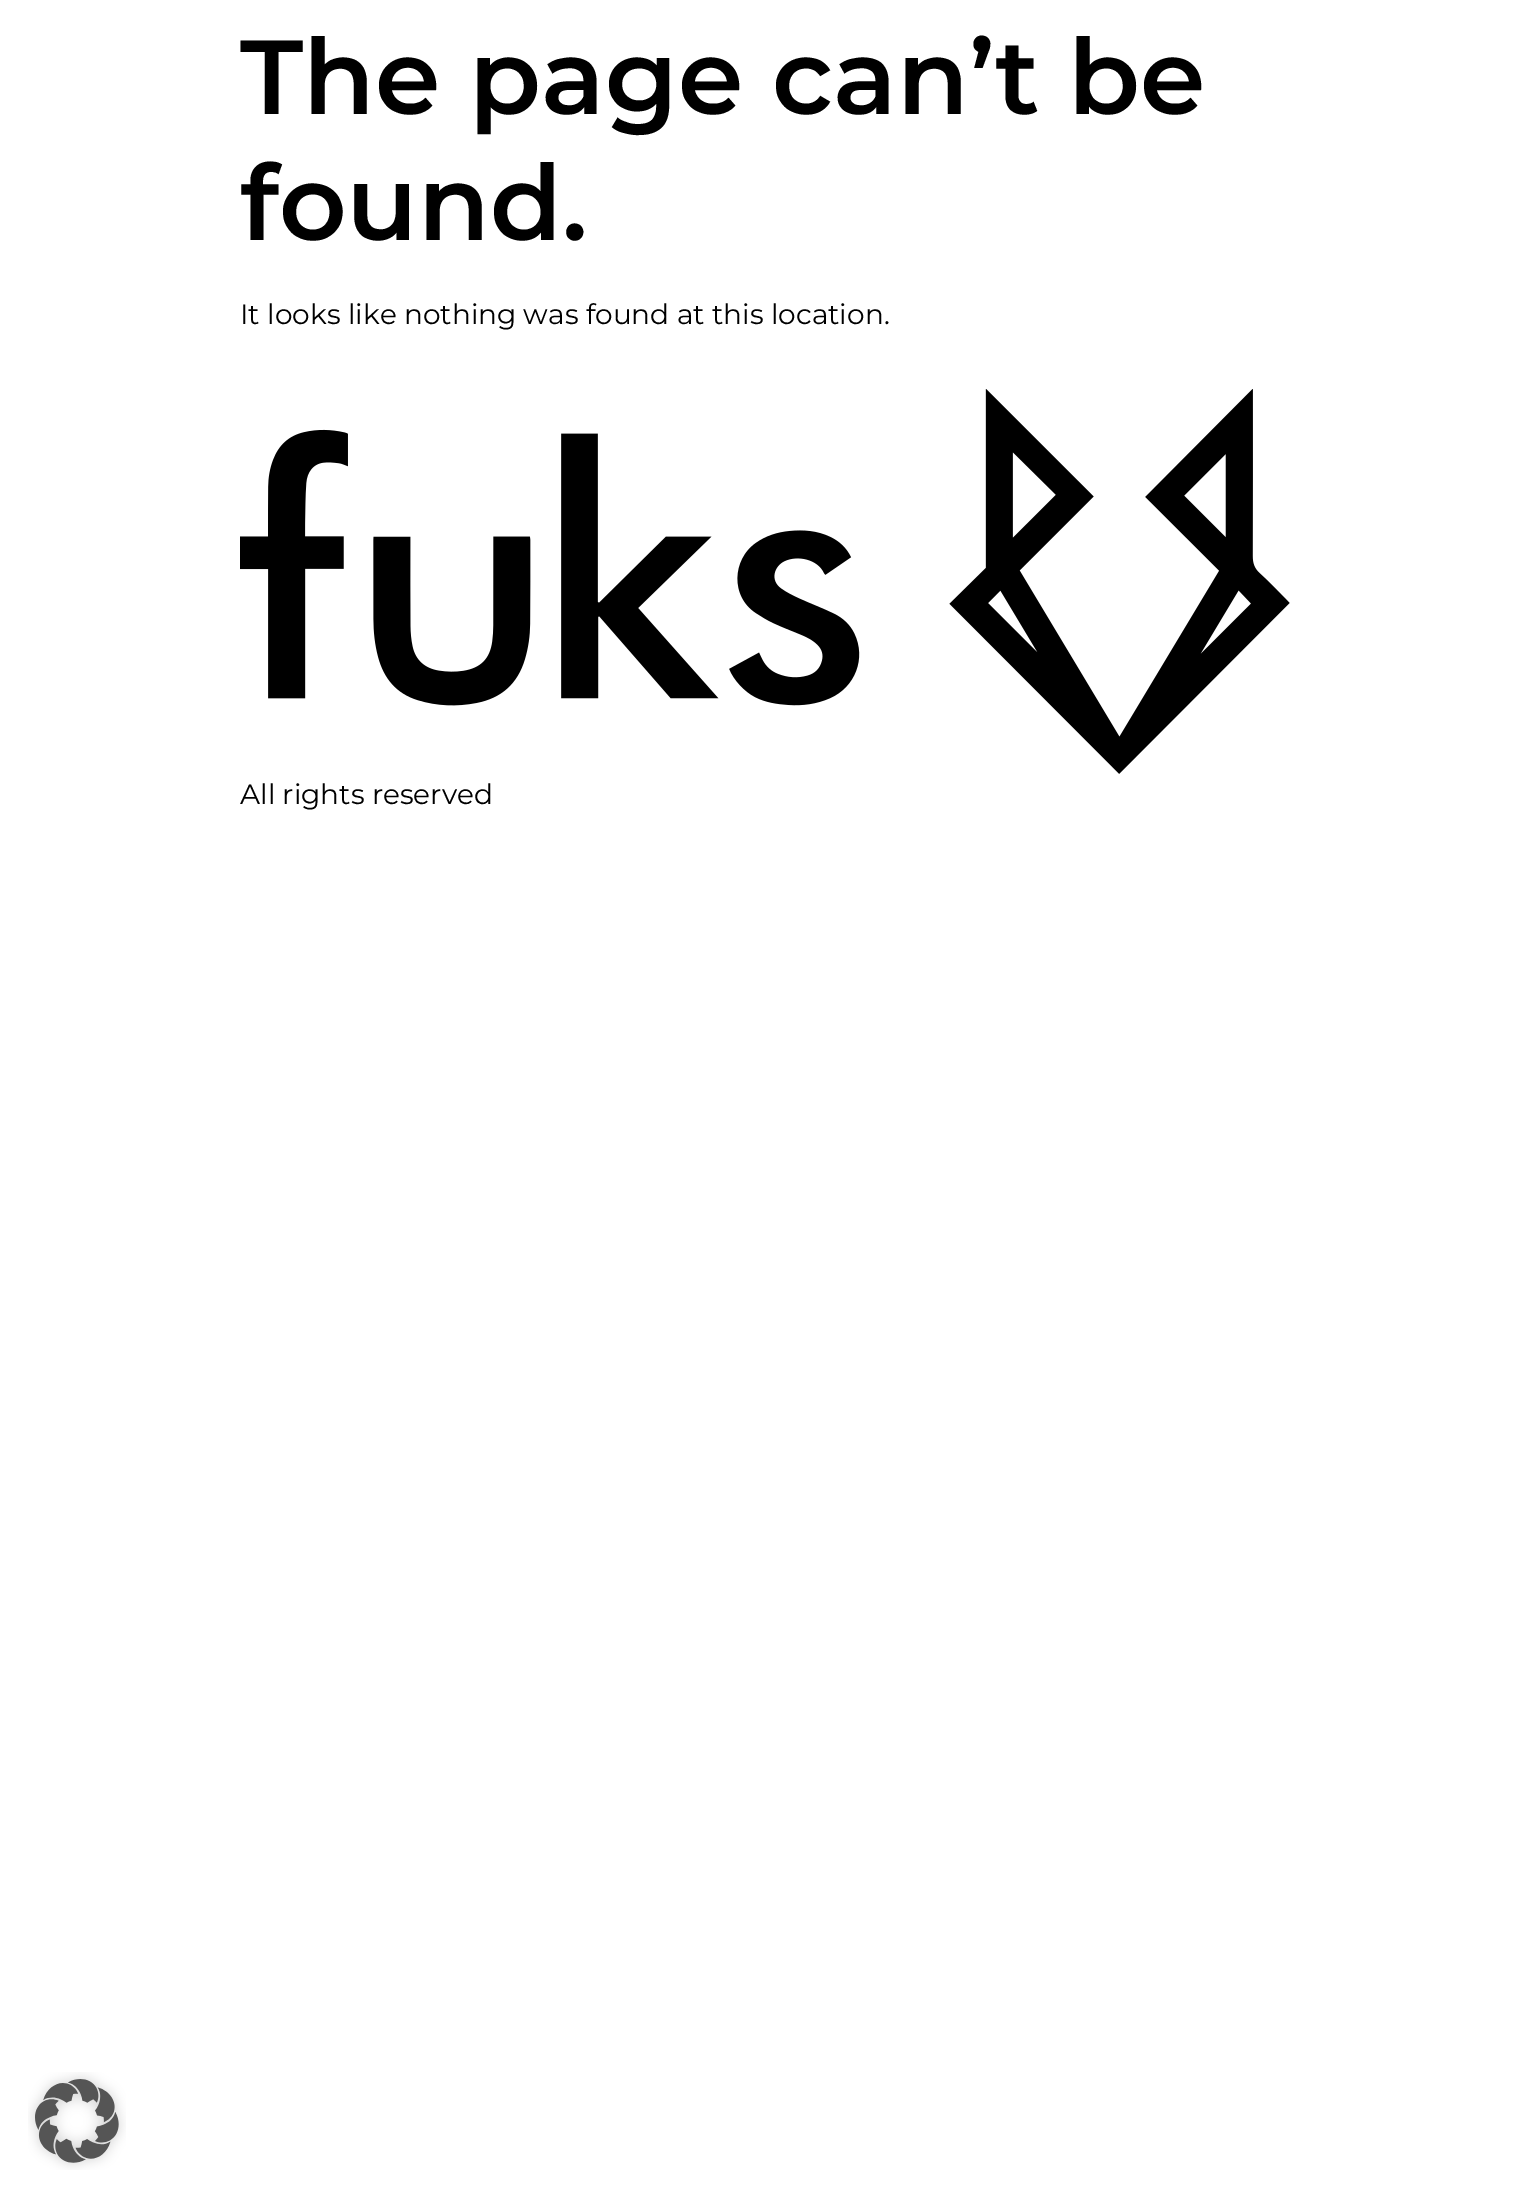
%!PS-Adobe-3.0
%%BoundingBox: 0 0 1529 2197
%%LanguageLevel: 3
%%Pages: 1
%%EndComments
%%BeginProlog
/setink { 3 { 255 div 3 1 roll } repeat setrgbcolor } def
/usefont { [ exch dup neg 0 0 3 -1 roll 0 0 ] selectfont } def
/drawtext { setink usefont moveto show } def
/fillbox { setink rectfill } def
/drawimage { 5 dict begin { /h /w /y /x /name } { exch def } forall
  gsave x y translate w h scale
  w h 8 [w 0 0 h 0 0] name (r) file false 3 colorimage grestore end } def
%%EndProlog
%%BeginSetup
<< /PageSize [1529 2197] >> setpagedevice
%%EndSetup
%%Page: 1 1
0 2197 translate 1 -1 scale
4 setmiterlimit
0 0 1529 2197 255 255 255 fillbox
(The page can’t be) 240 114 /Montserrat-Thin 105 0 0 0 drawtext
(found.) 240 240 /Montserrat-Thin 105 0 0 0 drawtext
(It looks like nothing was found at this location.) 240 324 /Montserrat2-Thin 28 0 0 0 drawtext
(assets/img1.rgb) 240 389 1050 385 drawimage
(All rights reserved) 240 804 /Montserrat2-Thin 28 0 0 0 drawtext
(assets/img2.rgb) 28 2072 98 98 drawimage
showpage
%%EOF
